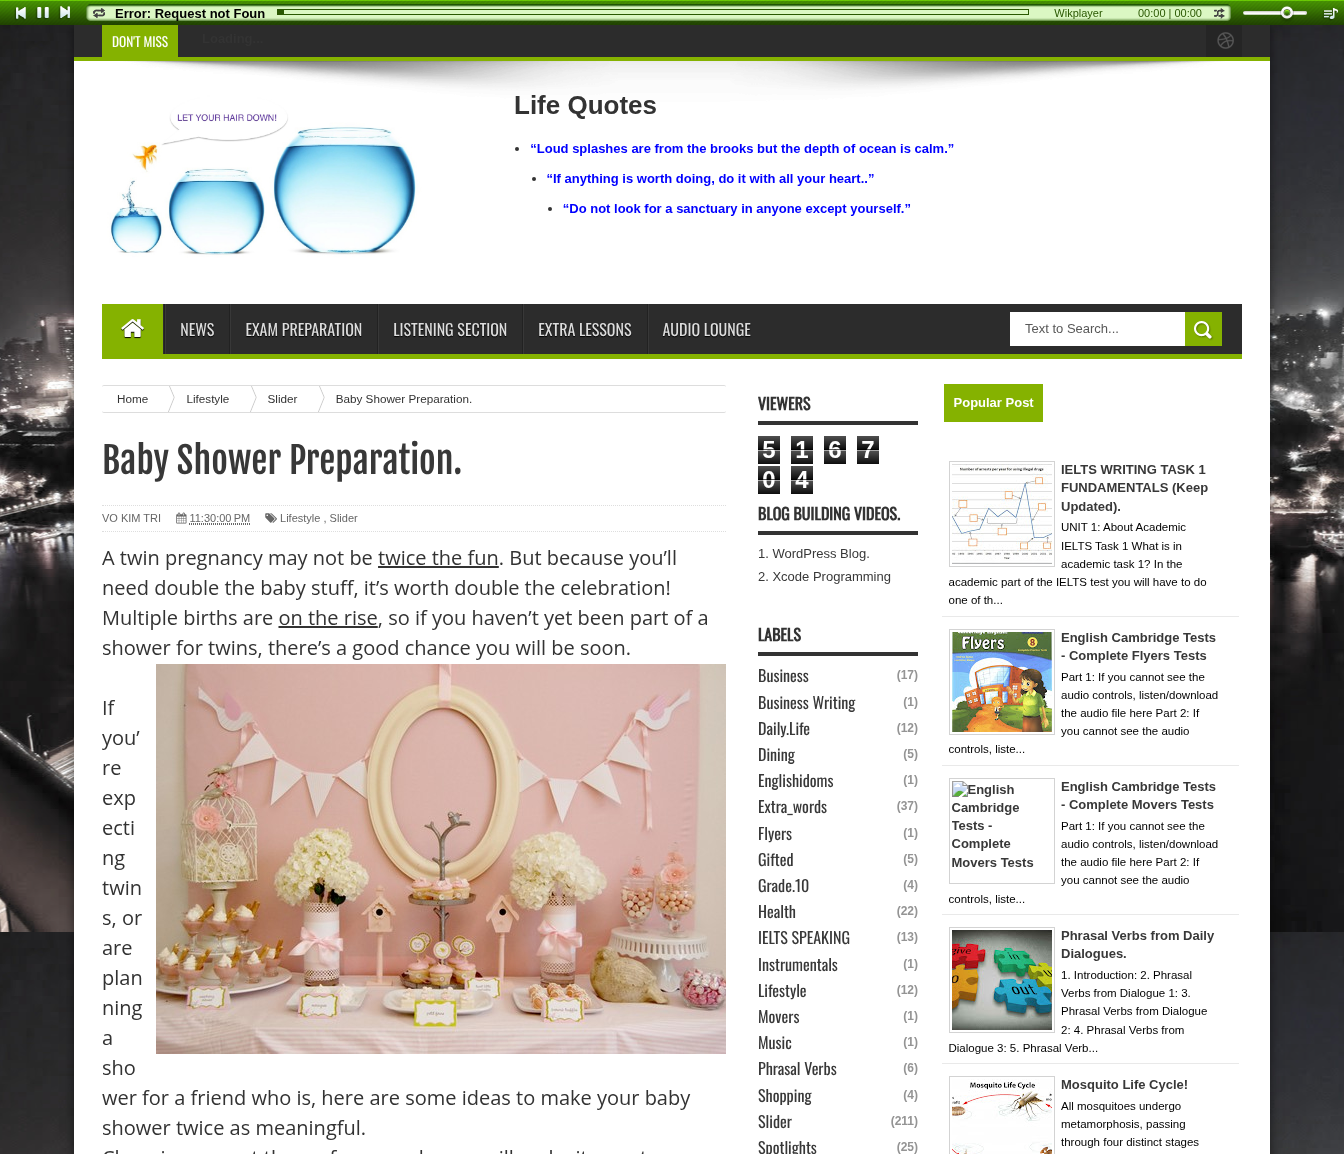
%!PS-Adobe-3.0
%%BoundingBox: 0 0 1344 1154
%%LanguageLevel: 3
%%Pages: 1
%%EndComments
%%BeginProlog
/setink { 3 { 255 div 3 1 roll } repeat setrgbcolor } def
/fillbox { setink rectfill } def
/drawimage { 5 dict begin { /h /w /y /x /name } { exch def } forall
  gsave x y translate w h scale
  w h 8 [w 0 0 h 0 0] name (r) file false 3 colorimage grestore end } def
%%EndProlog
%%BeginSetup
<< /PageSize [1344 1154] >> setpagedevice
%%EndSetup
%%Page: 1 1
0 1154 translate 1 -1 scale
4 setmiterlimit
0 0 1344 1154 255 255 255 fillbox
(assets/img1.rgb) 0 0 1344 1154 drawimage
showpage
%%EOF
